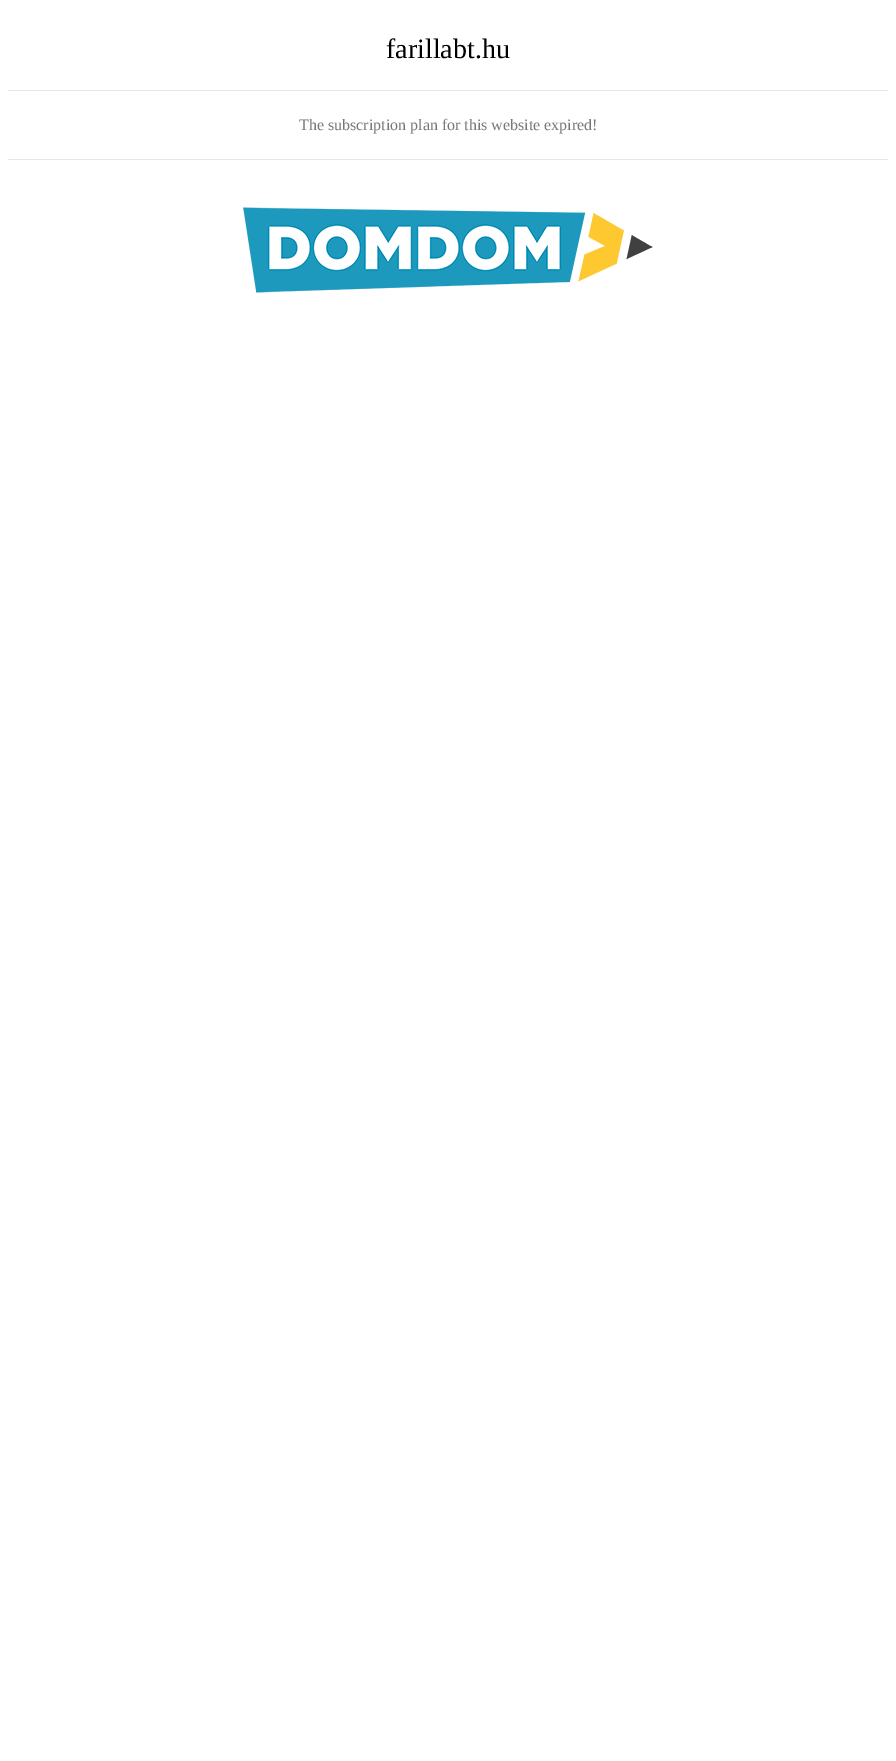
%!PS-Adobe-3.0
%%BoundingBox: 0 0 896 1761
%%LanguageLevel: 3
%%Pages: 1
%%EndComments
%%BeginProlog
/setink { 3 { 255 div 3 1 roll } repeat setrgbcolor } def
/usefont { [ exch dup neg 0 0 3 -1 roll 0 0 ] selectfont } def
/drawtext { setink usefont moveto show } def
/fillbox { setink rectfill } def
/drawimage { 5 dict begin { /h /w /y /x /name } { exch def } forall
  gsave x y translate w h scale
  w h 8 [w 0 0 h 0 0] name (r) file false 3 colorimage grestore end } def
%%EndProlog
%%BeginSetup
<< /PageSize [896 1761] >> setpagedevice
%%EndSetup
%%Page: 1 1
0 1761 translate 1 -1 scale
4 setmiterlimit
0 0 896 1761 255 255 255 fillbox
(farillabt.hu) 386 58 /LiberationSerif-Regular 28 0 0 0 drawtext
8 90 880 1 231 231 231 fillbox
8 159 880 1 231 231 231 fillbox
(The subscription plan for this website expired!) 299 130 /LiberationSerif-Regular 16 119 119 119 drawtext
(assets/img1.rgb) 243 207 410 86 drawimage
showpage
%%EOF
